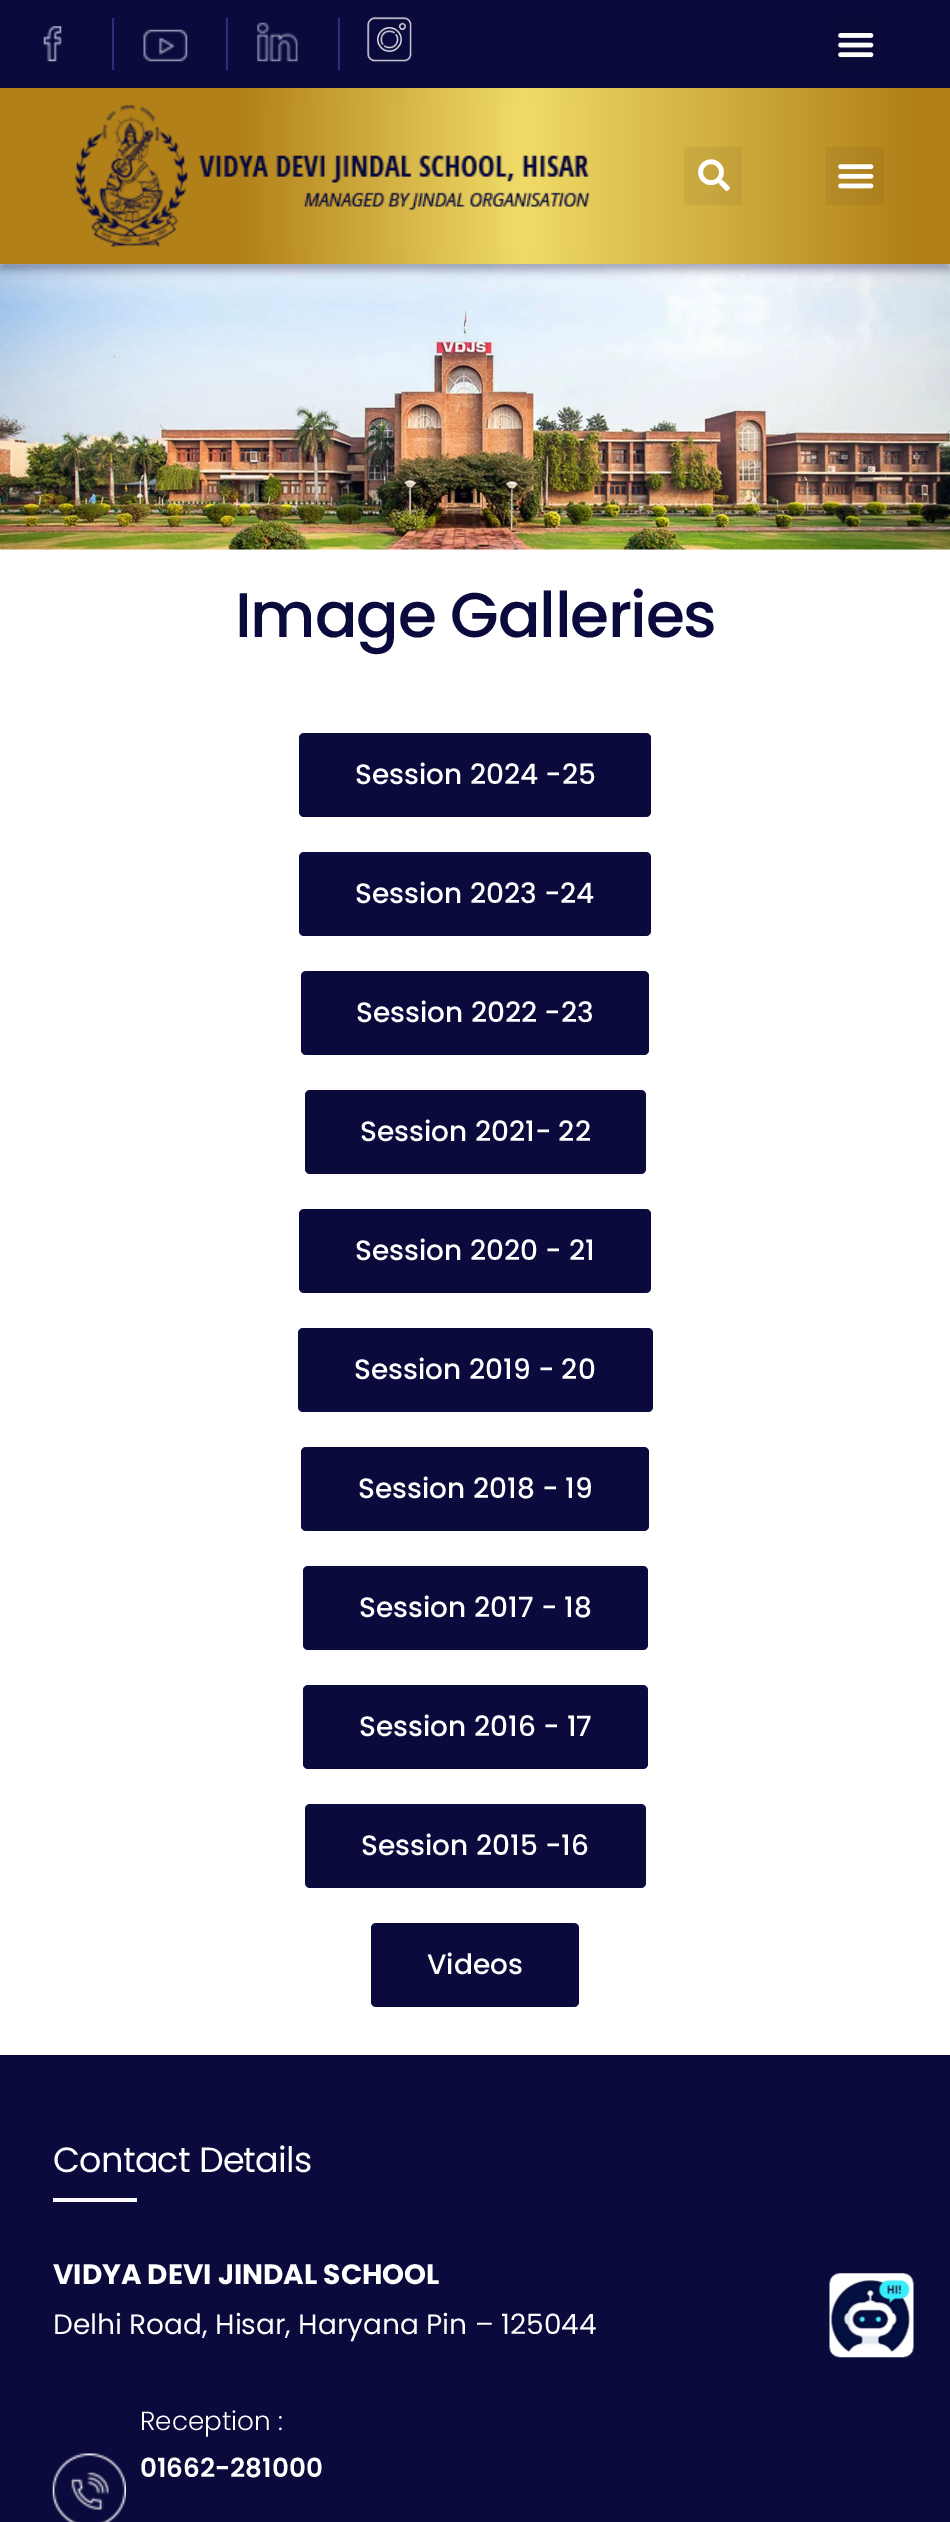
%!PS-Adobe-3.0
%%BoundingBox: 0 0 950 2522
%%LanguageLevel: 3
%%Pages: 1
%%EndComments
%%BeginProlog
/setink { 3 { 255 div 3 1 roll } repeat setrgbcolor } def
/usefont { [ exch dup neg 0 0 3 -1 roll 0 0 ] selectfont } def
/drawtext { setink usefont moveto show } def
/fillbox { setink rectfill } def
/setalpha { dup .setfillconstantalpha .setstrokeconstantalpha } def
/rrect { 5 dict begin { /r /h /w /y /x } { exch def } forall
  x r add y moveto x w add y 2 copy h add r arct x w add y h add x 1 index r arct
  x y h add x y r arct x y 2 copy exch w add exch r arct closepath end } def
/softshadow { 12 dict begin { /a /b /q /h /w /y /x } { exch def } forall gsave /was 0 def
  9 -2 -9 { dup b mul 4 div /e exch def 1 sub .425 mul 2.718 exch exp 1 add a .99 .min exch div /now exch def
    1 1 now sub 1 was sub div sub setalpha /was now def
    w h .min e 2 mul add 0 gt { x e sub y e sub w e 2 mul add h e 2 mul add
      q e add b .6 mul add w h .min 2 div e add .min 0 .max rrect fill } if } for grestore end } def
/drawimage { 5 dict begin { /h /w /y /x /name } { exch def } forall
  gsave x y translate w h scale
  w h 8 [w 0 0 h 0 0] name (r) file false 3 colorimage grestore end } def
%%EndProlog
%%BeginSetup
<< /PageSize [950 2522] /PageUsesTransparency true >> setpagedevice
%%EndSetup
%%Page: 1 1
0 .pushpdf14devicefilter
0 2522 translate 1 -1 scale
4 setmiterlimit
0 0 950 2522 255 255 255 fillbox
(assets/img9.rgb) 0 264 950 286 drawimage
15 15 65 setink
0 93 950 177 0 4.5 0.35 softshadow
0 0 950 88 10 10 60 fillbox
(assets/img1.rgb) 43 26 19 36 drawimage
112 18 2 52 44 44 126 fillbox
(assets/img2.rgb) 143 29 45 33 drawimage
226 18 2 52 44 44 126 fillbox
(assets/img3.rgb) 257 22 41 40 drawimage
338 18 2 52 44 44 126 fillbox
(assets/img4.rgb) 367 17 45 45 drawimage
10 10 57 setink
826 14 58 58 5 rrect fill
(assets/img5.rgb) 838 33 36 25 drawimage
gsave 0 88 moveto 950 88 lineto 950 264 lineto 0 264 lineto closepath clip newpath
<< /ShadingType 2 /ColorSpace /DeviceRGB /Coords [0 176 950 176] /Extend [true true] /Function << /FunctionType 3 /Domain [0 1] /Functions [<< /FunctionType 2 /Domain [0 1] /C0 [0.694 0.502 0.098] /C1 [0.694 0.502 0.098] /N 1 >> << /FunctionType 2 /Domain [0 1] /C0 [0.694 0.502 0.098] /C1 [0.941 0.859 0.408] /N 1 >> << /FunctionType 2 /Domain [0 1] /C0 [0.941 0.859 0.408] /C1 [0.694 0.502 0.098] /N 1 >> << /FunctionType 2 /Domain [0 1] /C0 [0.694 0.502 0.098] /C1 [0.694 0.502 0.098] /N 1 >>] /Bounds [0.25 0.55 0.96] /Encode [0 1 0 1 0 1 0 1] >> >> shfill grestore
(assets/img6.rgb) 75 105 515 142 drawimage
0.05 setalpha
684 147 58 58 0 0 0 fillbox
1 setalpha
(assets/img7.rgb) 698 159 32 33 drawimage
0.05 setalpha
826 147 58 58 0 0 0 fillbox
1 setalpha
(assets/img8.rgb) 838 164 36 25 drawimage
/Poppins-Medium 63 usefont
10 10 60 setink
235 637 moveto -1.25 0 (Image Galleries) ashow
299 733 352 84 5 rrect fill
(Session 2024 -25) 355 784 /Poppins-Medium 28 255 255 255 drawtext
10 10 60 setink
299 852 352 84 5 rrect fill
(Session 2023 -24) 355 903 /Poppins-Medium 28 255 255 255 drawtext
10 10 60 setink
301 971 348 84 5 rrect fill
(Session 2022 -23) 356 1022 /Poppins-Medium 28 255 255 255 drawtext
10 10 60 setink
305 1090 341 84 5 rrect fill
(Session 2021- 22) 360 1141 /Poppins-Medium 28 255 255 255 drawtext
10 10 60 setink
299 1209 352 84 5 rrect fill
(Session 2020 - 21) 355 1260 /Poppins-Medium 28 255 255 255 drawtext
10 10 60 setink
298 1328 355 84 5 rrect fill
(Session 2019 - 20) 354 1379 /Poppins-Medium 28 255 255 255 drawtext
10 10 60 setink
301 1447 348 84 5 rrect fill
(Session 2018 - 19) 358 1498 /Poppins-Medium 28 255 255 255 drawtext
10 10 60 setink
303 1566 345 84 5 rrect fill
(Session 2017 - 18) 359 1617 /Poppins-Medium 28 255 255 255 drawtext
10 10 60 setink
303 1685 345 84 5 rrect fill
(Session 2016 - 17) 359 1736 /Poppins-Medium 28 255 255 255 drawtext
10 10 60 setink
305 1804 341 84 5 rrect fill
(Session 2015 -16) 361 1855 /Poppins-Medium 28 255 255 255 drawtext
10 10 60 setink
371 1923 208 84 5 rrect fill
(Videos) 427 1974 /Poppins-Medium 28 255 255 255 drawtext
0 2055 950 467 10 10 60 fillbox
/Poppins-Regular 35 usefont
255 255 255 setink
53 2172 moveto -0.75 0 (Contact Details) ashow
53 2198 84 4 255 255 255 fillbox
(VIDYA DEVI JINDAL SCHOOL) 53 2284 /Poppins-Bold 28 255 255 255 drawtext
(Delhi Road, Hisar, Haryana Pin – 125044) 53 2334 /Poppins-Regular 28 255 255 255 drawtext
(Reception :) 140 2430 /Poppins-Light 26.25 255 255 255 drawtext
(01662-281000) 140 2477 /Poppins-SemiBold 26.25 255 255 255 drawtext
(assets/img10.rgb) 52 2453 74 69 drawimage
(assets/img11.rgb) 829 2273 85 85 drawimage
.poppdf14devicefilter showpage
%%EOF
